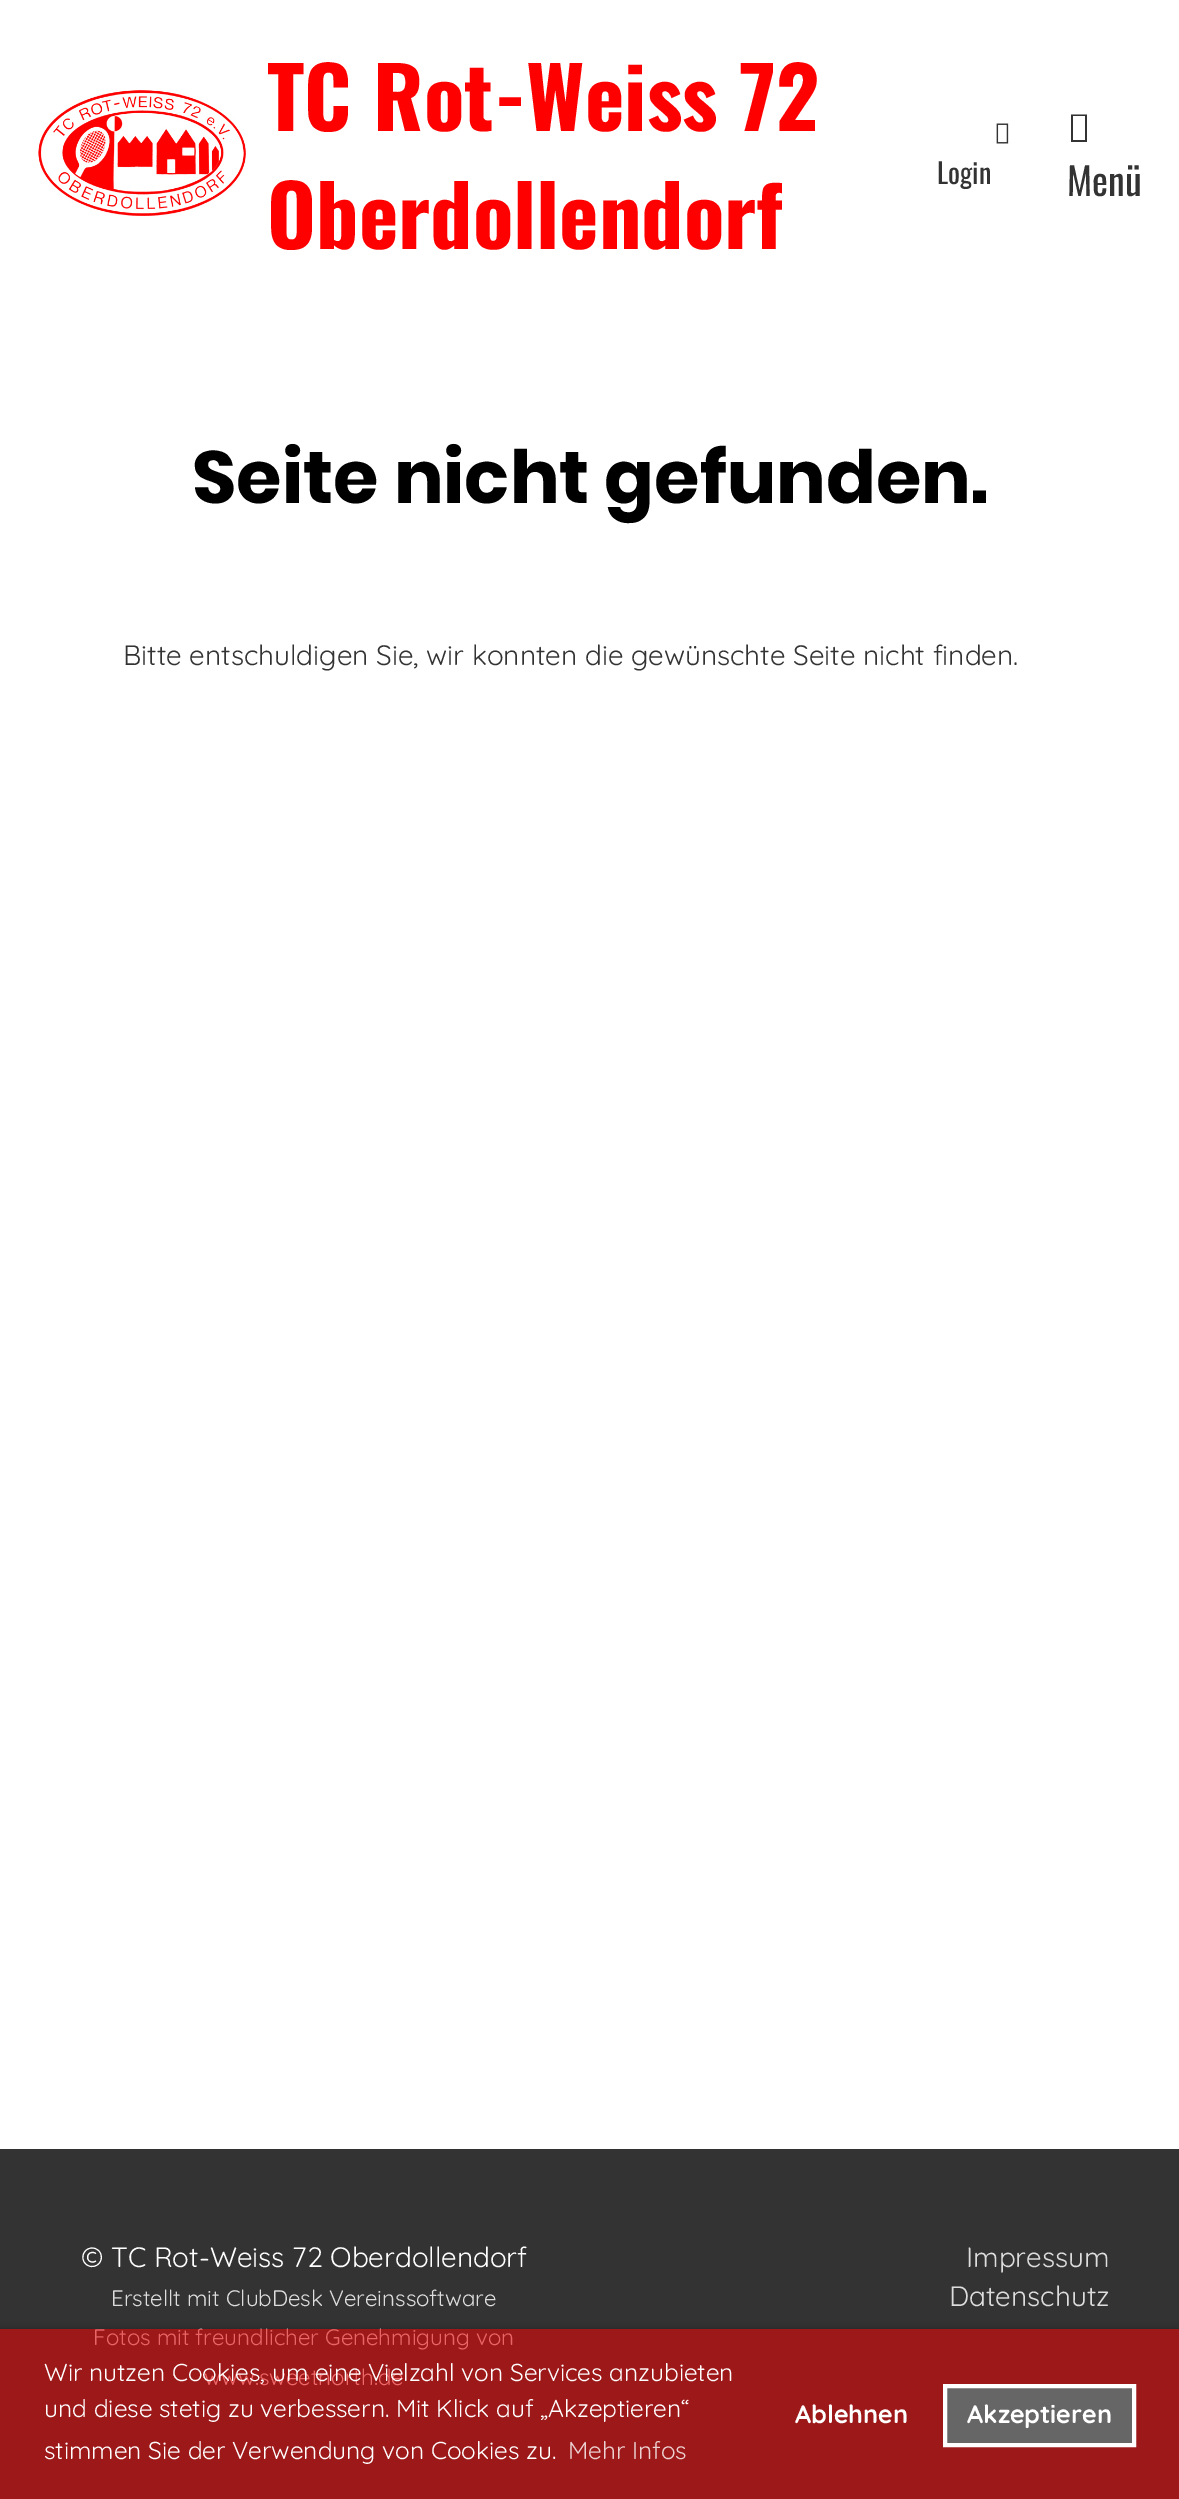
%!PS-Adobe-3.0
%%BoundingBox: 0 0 1179 2499
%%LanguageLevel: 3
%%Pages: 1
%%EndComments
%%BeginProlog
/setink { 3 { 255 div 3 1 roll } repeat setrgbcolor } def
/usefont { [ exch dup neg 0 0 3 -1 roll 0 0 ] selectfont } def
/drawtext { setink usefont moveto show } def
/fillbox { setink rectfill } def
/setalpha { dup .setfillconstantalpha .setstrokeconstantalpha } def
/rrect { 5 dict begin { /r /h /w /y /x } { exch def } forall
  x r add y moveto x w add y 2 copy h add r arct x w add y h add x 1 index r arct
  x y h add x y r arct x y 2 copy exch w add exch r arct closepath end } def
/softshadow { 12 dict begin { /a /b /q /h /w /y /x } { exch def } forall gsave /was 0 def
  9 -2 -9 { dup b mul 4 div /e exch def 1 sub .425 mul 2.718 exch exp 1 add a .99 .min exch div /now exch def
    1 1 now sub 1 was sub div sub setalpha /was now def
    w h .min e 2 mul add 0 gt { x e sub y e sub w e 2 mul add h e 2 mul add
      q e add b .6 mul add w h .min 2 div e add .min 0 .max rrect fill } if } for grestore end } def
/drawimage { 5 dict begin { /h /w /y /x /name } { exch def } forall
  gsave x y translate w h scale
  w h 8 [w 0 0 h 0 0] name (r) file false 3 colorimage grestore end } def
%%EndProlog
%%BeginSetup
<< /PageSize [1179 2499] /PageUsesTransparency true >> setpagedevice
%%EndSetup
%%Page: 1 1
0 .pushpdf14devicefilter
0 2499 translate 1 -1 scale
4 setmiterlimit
0 0 1179 2499 255 255 255 fillbox
(assets/img1.rgb) 38 90 208 126 drawimage
(TC Rot-Weiss 72) 267 131 /Oswald-Bold 84 255 0 0 drawtext
(Oberdollendorf) 267 249 /Oswald-Bold 84 255 0 0 drawtext
(assets/img2.rgb) 996 123 13 21 drawimage
(Login) 937 184 /Oswald-Regular 28 51 51 51 drawtext
1071 142 moveto 1071 114.5 lineto 1087 114.5 lineto 1087 142 lineto closepath 1073 140 moveto 1085 140 lineto 1085 116 lineto 1073 116 lineto closepath fill
(Menü) 1067 196 /Oswald-Regular 38 51 51 51 drawtext
(Seite nicht gefunden.) 192 503 /Poppins-Bold 73.5 0 0 0 drawtext
(Bitte entschuldigen Sie, wir konnten die gewünschte Seite nicht finden.) 123 665 /Quicksand-Light 28 51 51 51 drawtext
0 2149 1179 350 51 51 51 fillbox
(© TC Rot-Weiss 72 Oberdollendorf) 81 2267 /Quicksand-Light 28 255 255 255 drawtext
(Erstellt mit ClubDesk Vereinssoftware) 111 2306 /Quicksand-Light 22.4 221 221 221 drawtext
(Fotos mit freundlicher Genehmigung von) 93 2345 /Quicksand-Light 22.4 206 212 217 drawtext
(www.sweetnorth.de) 204 2385 /Quicksand-Light 22.4 221 221 221 drawtext
(Impressum) 966 2267 /Quicksand-Light 28 221 221 221 drawtext
(Datenschutz) 949 2306 /Quicksand-Light 28 221 221 221 drawtext
gsave
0 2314 moveto 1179 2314 lineto 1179 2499 lineto 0 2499 lineto closepath 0 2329 moveto 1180 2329 lineto 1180 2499 lineto 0 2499 lineto closepath eoclip newpath
0 0 0 setink
0 2329 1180 170 0 4.5 0.3 softshadow
grestore
0.52 setalpha
0 2329 1179 170 255 0 0 fillbox
1 setalpha
(Wir nutzen Cookies, um eine Vielzahl von Services anzubieten) 44 2381 /Quicksand-Light 24.5 255 255 255 drawtext
(und diese stetig zu verbessern. Mit Klick auf „Akzeptieren“) 44 2417 /Quicksand-Light 24.5 255 255 255 drawtext
(stimmen Sie der Verwendung von Cookies zu.) 44 2459 /Quicksand-Light 24.5 255 255 255 drawtext
(Mehr Infos) 568 2459 /Quicksand-Light 24.5 235 209 209 drawtext
(Ablehnen) 795 2423 /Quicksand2-Light 25.25 255 255 255 drawtext
102 102 102 setink
945 2386 moveto 1134 2386 lineto 1134 2445 lineto 945 2445 lineto closepath gsave fill grestore
255 255 255 setink
4 setlinewidth
stroke
(Akzeptieren) 967 2423 /Quicksand2-Light 25.25 255 255 255 drawtext
.poppdf14devicefilter showpage
%%EOF
